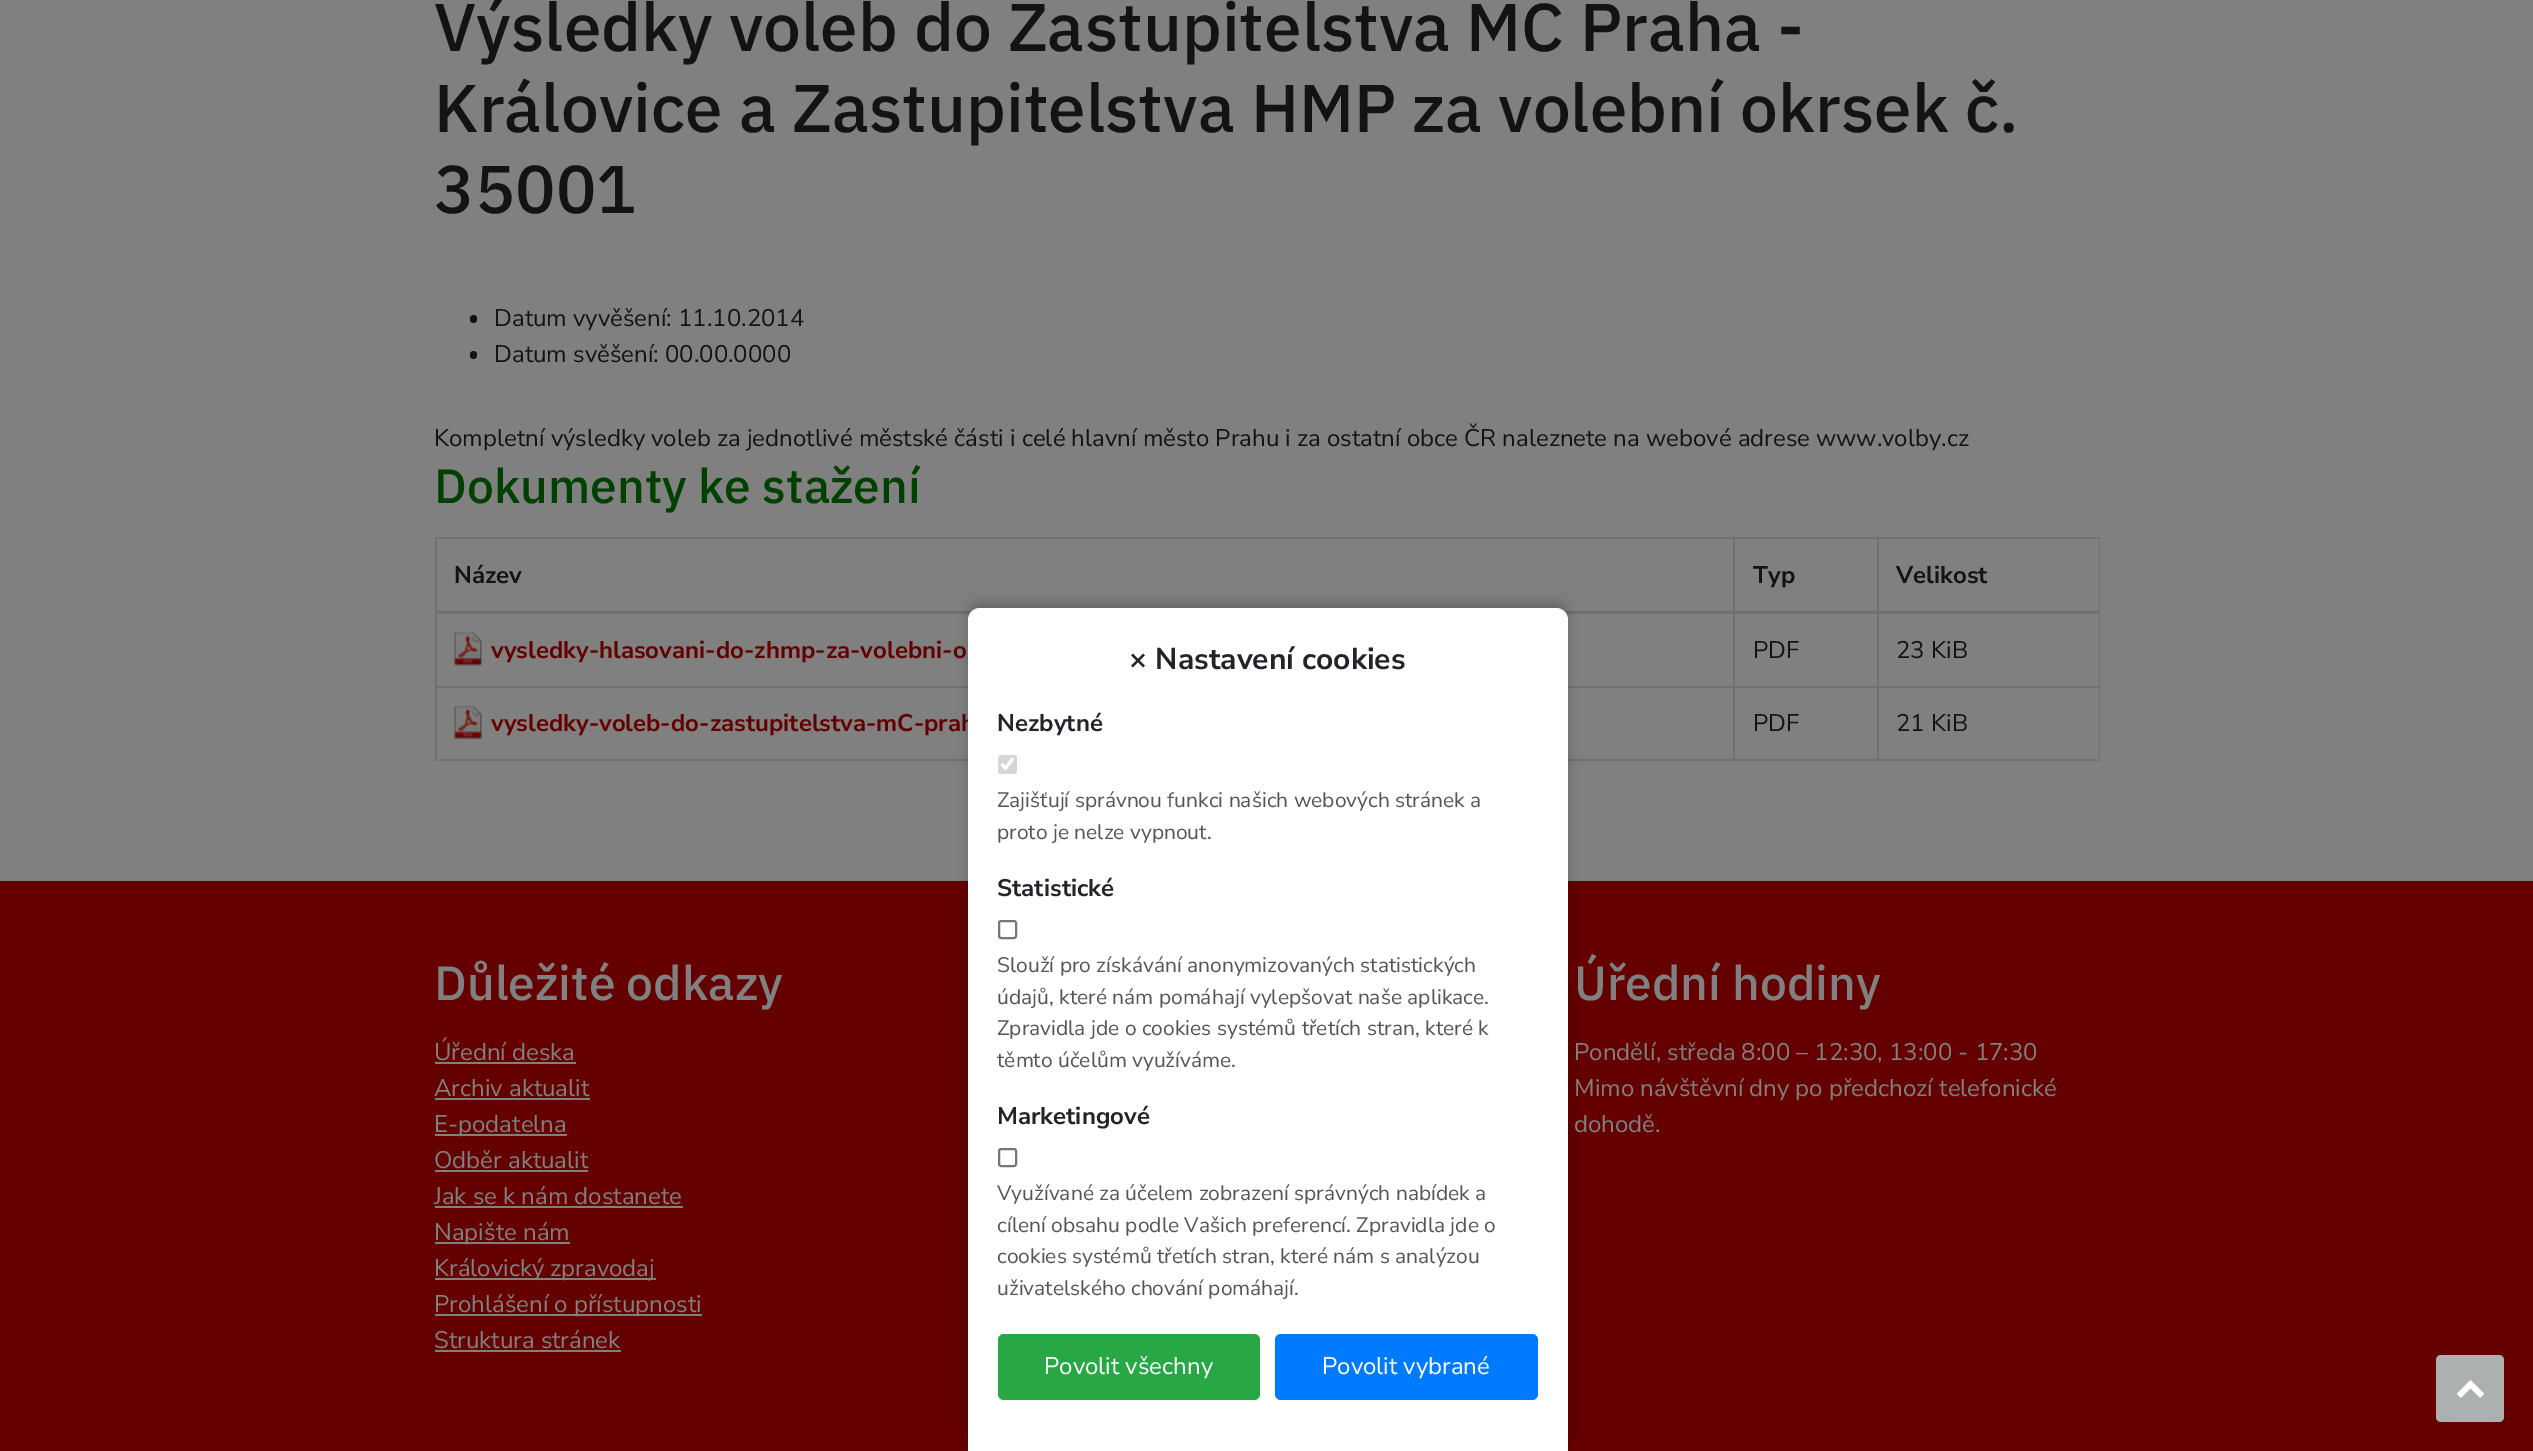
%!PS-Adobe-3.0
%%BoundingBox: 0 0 2533 1451
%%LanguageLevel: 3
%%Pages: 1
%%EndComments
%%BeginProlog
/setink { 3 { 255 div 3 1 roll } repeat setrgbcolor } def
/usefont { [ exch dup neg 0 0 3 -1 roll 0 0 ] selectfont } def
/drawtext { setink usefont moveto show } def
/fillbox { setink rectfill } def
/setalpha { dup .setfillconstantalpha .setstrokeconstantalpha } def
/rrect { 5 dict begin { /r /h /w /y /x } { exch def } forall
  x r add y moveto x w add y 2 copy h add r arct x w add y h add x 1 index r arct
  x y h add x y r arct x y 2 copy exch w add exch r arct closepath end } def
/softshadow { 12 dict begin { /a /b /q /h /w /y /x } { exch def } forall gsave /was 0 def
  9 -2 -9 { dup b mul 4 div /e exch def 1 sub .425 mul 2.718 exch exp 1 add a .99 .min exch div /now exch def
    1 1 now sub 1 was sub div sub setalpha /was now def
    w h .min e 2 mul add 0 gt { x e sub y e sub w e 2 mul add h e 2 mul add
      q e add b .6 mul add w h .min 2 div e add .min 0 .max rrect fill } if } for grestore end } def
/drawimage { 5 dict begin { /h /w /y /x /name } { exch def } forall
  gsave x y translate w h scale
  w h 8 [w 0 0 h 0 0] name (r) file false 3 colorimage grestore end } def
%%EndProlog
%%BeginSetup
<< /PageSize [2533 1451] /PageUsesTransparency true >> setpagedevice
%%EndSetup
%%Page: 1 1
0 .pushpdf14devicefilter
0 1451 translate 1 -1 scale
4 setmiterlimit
0 0 2533 1451 128 128 128 fillbox
(Výsledky voleb do Zastupitelstva MČ Praha -) 434 51 /IBMPlexSans-Medium 67.5 17 19 21 drawtext
(Královice a Zastupitelstva HMP za volební okrsek č.) 434 132 /IBMPlexSans-Medium 67.5 17 19 21 drawtext
(35001) 434 213 /IBMPlexSans-Medium 67.5 17 19 21 drawtext
470 315 7 8 3.5 rrect fill
(Datum vyvěšení: 11.10.2014) 494 326 /NunitoSans-Regular 24 17 19 21 drawtext
470 351 7 8 3.5 rrect fill
(Datum svěšení: 00.00.0000) 494 362 /NunitoSans-Regular 24 17 19 21 drawtext
(Kompletní výsledky voleb za jednotlivé městské části i celé hlavní město Prahu i za ostatní obce ČR naleznete na webové adrese www.volby.cz) 434 446 /NunitoSans-Regular 24 17 19 21 drawtext
(Dokumenty ke stažení) 434 503 /IBMPlexSans-Medium 48 0 64 0 drawtext
1877 537 223 2 111 113 115 fillbox
1877 686 223 2 111 113 115 fillbox
2099 612 1 149 111 113 115 fillbox
1877 759 223 2 111 113 115 fillbox
1877 686 2 75 111 113 115 fillbox
1733 686 145 2 111 113 115 fillbox
1877 612 2 75 111 113 115 fillbox
1877 537 2 77 111 113 115 fillbox
1733 537 145 2 111 113 115 fillbox
1733 759 145 2 111 113 115 fillbox
1733 686 2 75 111 113 115 fillbox
435 686 1299 2 111 113 115 fillbox
1733 612 2 75 111 113 115 fillbox
1733 537 2 77 111 113 115 fillbox
435 537 1299 2 111 113 115 fillbox
435 759 1299 2 111 113 115 fillbox
435 612 2 149 111 113 115 fillbox
435 537 2 77 111 113 115 fillbox
(Název) 454 583 /NunitoSans-Bold 24 17 19 21 drawtext
(Typ) 1753 583 /NunitoSans-Bold 24 17 19 21 drawtext
2099 537 1 77 111 113 115 fillbox
435 611 1665 3 111 113 115 fillbox
(Velikost) 1896 583 /NunitoSans-Bold 24 17 19 21 drawtext
(assets/img1.rgb) 454 632 28 34 drawimage
(vysledky-hlasovani-do-zhmp-za-volebni-o) 491 658 /NunitoSans-Bold 24 100 0 0 drawtext
(PDF) 1753 658 /NunitoSans-Regular 24 17 19 21 drawtext
(23 KiB) 1896 658 /NunitoSans-Regular 24 17 19 21 drawtext
(assets/img2.rgb) 454 706 28 33 drawimage
(vysledky-voleb-do-zastupitelstva-mC-prah) 491 731 /NunitoSans-Bold 24 100 0 0 drawtext
(PDF) 1753 731 /NunitoSans-Regular 24 17 19 21 drawtext
(21 KiB) 1896 731 /NunitoSans-Regular 24 17 19 21 drawtext
0 881 2533 570 100 0 0 fillbox
0 0 0 setink
968 602 600 844 12 6 0.2 softshadow
255 255 255 setink
980 608 moveto 1556 608 lineto 1562.5 608 1568 613.5 1568 620 curveto 1568 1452 lineto 968 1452 lineto 968 620 lineto 968 613.5 973.5 608 980 608 curveto closepath fill
(× Nastavení cookies) 1129 669 /NunitoSans-Bold 30 33 37 41 drawtext
(Nezbytné) 997 731 /NunitoSans-Bold 24 33 37 41 drawtext
214 214 214 setink
998 755 19 19 3 rrect fill
255 255 255 setink
3.1 setlinewidth
1001.5 764 moveto 1005.5 768 lineto 1013 758.5 lineto stroke
(Zajišťují správnou funkci našich webových stránek a) 997 807 /NunitoSans-Regular 21 85 85 85 drawtext
(proto je nelze vypnout.) 997 839 /NunitoSans-Regular 21 85 85 85 drawtext
(Statistické) 997 896 /NunitoSans-Bold 24 33 37 41 drawtext
118 118 118 setink
2 setlinewidth
999 921 17 17 2 rrect stroke
(Slouží pro získávání anonymizovaných statistických) 997 972 /NunitoSans-Regular 21 85 85 85 drawtext
(údajů, které nám pomáhají vylepšovat naše aplikace.) 997 1004 /NunitoSans-Regular 21 85 85 85 drawtext
(Zpravidla jde o cookies systémů třetích stran, které k) 997 1035 /NunitoSans-Regular 21 85 85 85 drawtext
(těmto účelům využíváme.) 997 1067 /NunitoSans-Regular 21 85 85 85 drawtext
(Marketingové) 997 1124 /NunitoSans-Bold 24 33 37 41 drawtext
118 118 118 setink
999 1149 17 17 2 rrect stroke
(Využívané za účelem zobrazení správných nabídek a) 997 1200 /NunitoSans-Regular 21 85 85 85 drawtext
(cílení obsahu podle Vašich preferencí. Zpravidla jde o) 997 1232 /NunitoSans-Regular 21 85 85 85 drawtext
(cookies systémů třetích stran, které nám s analýzou) 997 1263 /NunitoSans-Regular 21 85 85 85 drawtext
(uživatelského chování pomáhají.) 997 1295 /NunitoSans-Regular 21 85 85 85 drawtext
40 167 69 setink
998 1334 262 66 6 rrect fill
(Povolit všechny) 1044 1374 /NunitoSans-Regular 24 255 255 255 drawtext
0 123 255 setink
1275 1334 263 66 6 rrect fill
(Povolit vybrané) 1322 1374 /NunitoSans-Regular 24 255 255 255 drawtext
(Důležité odkazy) 434 1000 /IBMPlexSans-Medium 48 128 128 128 drawtext
(Úřední deska) 434 1060 /NunitoSans-Regular 24 128 128 128 drawtext
435 1062 141 2 128 128 128 fillbox
(Archiv aktualit) 434 1096 /NunitoSans-Regular 24 128 128 128 drawtext
435 1098 155 2 128 128 128 fillbox
435 1134 132 2 128 128 128 fillbox
(E-podatelna) 434 1132 /NunitoSans-Regular 24 128 128 128 drawtext
(Odběr aktualit) 434 1168 /NunitoSans-Regular 24 128 128 128 drawtext
435 1170 153 2 128 128 128 fillbox
(Jak se k nám dostanete) 434 1204 /NunitoSans-Regular 24 128 128 128 drawtext
435 1206 248 2 128 128 128 fillbox
435 1242 135 2 128 128 128 fillbox
(Napište nám) 434 1240 /NunitoSans-Regular 24 128 128 128 drawtext
435 1278 221 2 128 128 128 fillbox
(Královický zpravodaj) 434 1276 /NunitoSans-Regular 24 128 128 128 drawtext
435 1314 267 2 128 128 128 fillbox
(Prohlášení o přístupnosti) 434 1312 /NunitoSans-Regular 24 128 128 128 drawtext
(Struktura stránek) 434 1348 /NunitoSans-Regular 24 128 128 128 drawtext
435 1350 186 2 128 128 128 fillbox
(Úřední hodiny) 1574 1000 /IBMPlexSans-Medium 48 128 128 128 drawtext
(Pondělí, středa 8:00 – 12:30, 13:00 - 17:30) 1574 1060 /NunitoSans-Regular 24 128 128 128 drawtext
(Mimo návštěvní dny po předchozí telefonické) 1574 1096 /NunitoSans-Regular 24 128 128 128 drawtext
(dohodě.) 1574 1132 /NunitoSans-Regular 24 128 128 128 drawtext
173 176 177 setink
2436 1355 68 67 5 rrect fill
(assets/img3.rgb) 2457 1380 27 18 drawimage
.poppdf14devicefilter showpage
%%EOF
